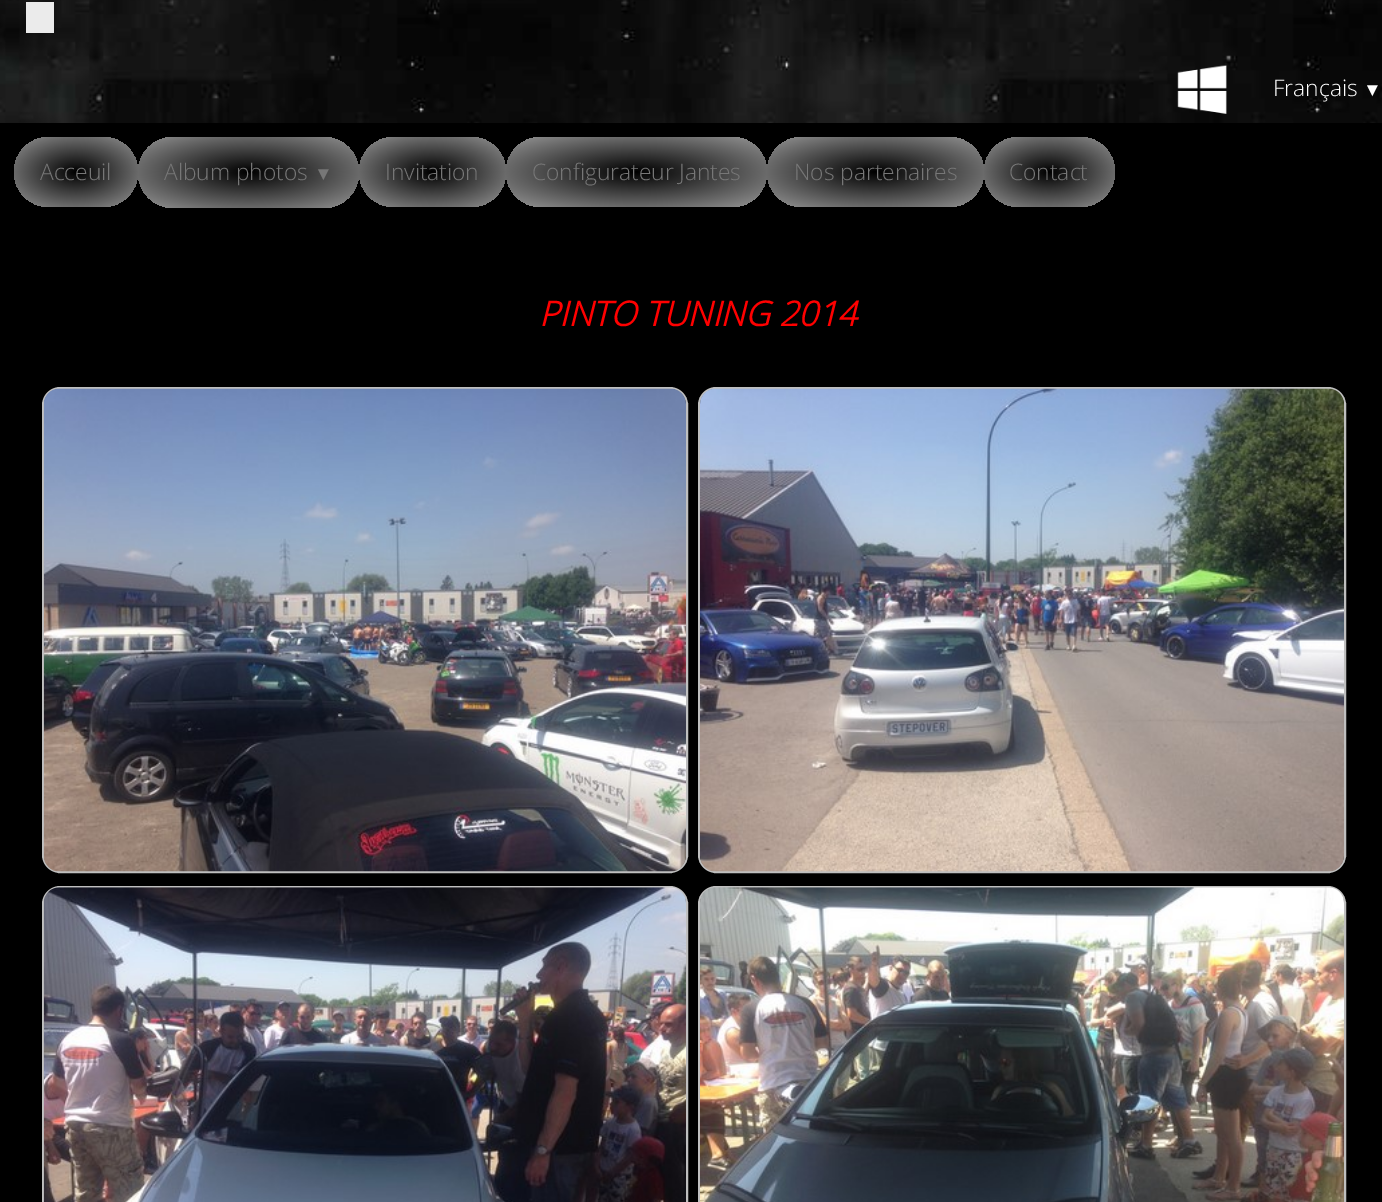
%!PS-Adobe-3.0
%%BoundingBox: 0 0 1382 1202
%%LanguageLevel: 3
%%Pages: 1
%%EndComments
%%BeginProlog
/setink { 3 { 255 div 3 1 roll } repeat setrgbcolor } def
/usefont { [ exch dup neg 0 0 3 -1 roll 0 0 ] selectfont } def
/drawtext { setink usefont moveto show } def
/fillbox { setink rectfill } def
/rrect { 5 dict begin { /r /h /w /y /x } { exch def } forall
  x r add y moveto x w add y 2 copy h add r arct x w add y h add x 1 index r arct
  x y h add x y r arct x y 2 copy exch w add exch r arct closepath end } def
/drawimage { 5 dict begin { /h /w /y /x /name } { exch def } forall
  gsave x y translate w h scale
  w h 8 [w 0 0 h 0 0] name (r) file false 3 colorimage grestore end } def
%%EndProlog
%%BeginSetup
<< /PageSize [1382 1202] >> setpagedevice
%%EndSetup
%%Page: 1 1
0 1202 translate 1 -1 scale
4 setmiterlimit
0 0 1382 1202 255 255 255 fillbox
(assets/img1.rgb) 0 0 1382 123 drawimage
26 2 28 31 235 235 235 fillbox
(assets/img2.rgb) 1177 65 50 49 drawimage
(Français) 1273 96 /OpenSans-Light 22.75 255 255 255 drawtext
(▼) 1363 96 /LiberationSans-Regular 19 255 255 255 drawtext
0 123 1382 1079 0 0 0 fillbox
gsave 14 137 124 70 35 rrect clip newpath 76 172 translate 88 49 scale
<< /ShadingType 3 /ColorSpace /DeviceRGB /Coords [0 0 0 0 0 1] /Extend [true true] /Function << /FunctionType 2 /Domain [0 1] /C0 [0 0 0] /C1 [0.588 0.588 0.588] /N 1 >> >> shfill grestore
(Acceuil) 40 180 /OpenSans-Light 22.75 119 119 119 drawtext
gsave 138 137 221 71 35.5 rrect clip newpath 249 172 translate 156 51 scale
<< /ShadingType 3 /ColorSpace /DeviceRGB /Coords [0 0 0 0 0 1] /Extend [true true] /Function << /FunctionType 2 /Domain [0 1] /C0 [0 0 0] /C1 [0.588 0.588 0.588] /N 1 >> >> shfill grestore
(Album photos) 164 180 /OpenSans-Light 22.75 119 119 119 drawtext
(▼) 314 180 /LiberationSans-Regular 19 119 119 119 drawtext
gsave 359 137 147 70 35 rrect clip newpath 432 172 translate 104 49 scale
<< /ShadingType 3 /ColorSpace /DeviceRGB /Coords [0 0 0 0 0 1] /Extend [true true] /Function << /FunctionType 2 /Domain [0 1] /C0 [0 0 0] /C1 [0.588 0.588 0.588] /N 1 >> >> shfill grestore
(Invitation) 385 180 /OpenSans-Light 22.75 119 119 119 drawtext
gsave 506 137 261 70 35 rrect clip newpath 636 172 translate 184 49 scale
<< /ShadingType 3 /ColorSpace /DeviceRGB /Coords [0 0 0 0 0 1] /Extend [true true] /Function << /FunctionType 2 /Domain [0 1] /C0 [0 0 0] /C1 [0.588 0.588 0.588] /N 1 >> >> shfill grestore
(Configurateur Jantes) 532 180 /OpenSans-Light 22.75 119 119 119 drawtext
gsave 767 137 217 70 35 rrect clip newpath 875 172 translate 153 49 scale
<< /ShadingType 3 /ColorSpace /DeviceRGB /Coords [0 0 0 0 0 1] /Extend [true true] /Function << /FunctionType 2 /Domain [0 1] /C0 [0 0 0] /C1 [0.588 0.588 0.588] /N 1 >> >> shfill grestore
(Nos partenaires) 794 180 /OpenSans-Light 22.75 119 119 119 drawtext
gsave 984 137 131 70 35 rrect clip newpath 1049 172 translate 93 49 scale
<< /ShadingType 3 /ColorSpace /DeviceRGB /Coords [0 0 0 0 0 1] /Extend [true true] /Function << /FunctionType 2 /Domain [0 1] /C0 [0 0 0] /C1 [0.588 0.588 0.588] /N 1 >> >> shfill grestore
(Contact) 1009 180 /OpenSans-Light 22.75 119 119 119 drawtext
(PINTO TUNING 2014) 539 326 /OpenSans-BoldItalic 34.1 255 0 0 drawtext
191 191 191 setink
2 setlinewidth
43 388 644 484 17 rrect stroke
(assets/img3.rgb) 43 388 643 484 drawimage
43 887 644 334 17 rrect stroke
(assets/img4.rgb) 43 887 643 315 drawimage
699 388 646 484 17 rrect stroke
(assets/img5.rgb) 700 388 644 484 drawimage
699 887 646 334 17 rrect stroke
(assets/img6.rgb) 700 887 644 315 drawimage
showpage
%%EOF
